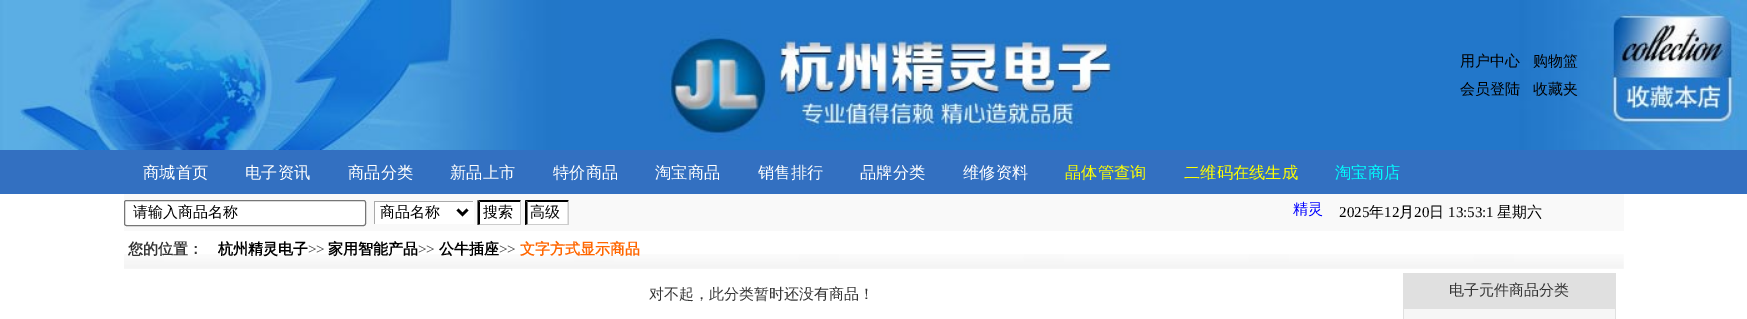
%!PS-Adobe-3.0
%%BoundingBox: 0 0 1747 319
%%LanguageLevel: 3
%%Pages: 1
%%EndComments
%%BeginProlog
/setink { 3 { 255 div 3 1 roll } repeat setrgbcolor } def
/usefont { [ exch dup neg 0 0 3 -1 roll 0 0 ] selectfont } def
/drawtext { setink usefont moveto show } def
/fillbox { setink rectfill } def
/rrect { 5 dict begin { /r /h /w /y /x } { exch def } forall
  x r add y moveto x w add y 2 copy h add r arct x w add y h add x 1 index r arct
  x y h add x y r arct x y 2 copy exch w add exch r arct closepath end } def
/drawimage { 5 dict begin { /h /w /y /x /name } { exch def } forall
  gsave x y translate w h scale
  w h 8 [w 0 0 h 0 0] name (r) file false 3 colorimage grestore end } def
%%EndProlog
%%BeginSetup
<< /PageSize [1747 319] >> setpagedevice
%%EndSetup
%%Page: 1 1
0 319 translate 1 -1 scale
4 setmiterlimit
0 0 1747 319 255 255 255 fillbox
(assets/img1.rgb) 0 0 1747 150 drawimage
(用户中心) 1460 66 /WenQuanYiZenHei-Medium 15 0 0 0 drawtext
(购物篮) 1533 66 /WenQuanYiZenHei-Medium 15 0 0 0 drawtext
(会员登陆) 1460 94 /WenQuanYiZenHei-Medium 15 0 0 0 drawtext
(收藏夹) 1533 94 /WenQuanYiZenHei-Medium 15 0 0 0 drawtext
0 150 1747 44 51 112 193 fillbox
(商城首页) 143 178 /WenQuanYiZenHei-Medium 16.25 255 255 255 drawtext
(电子资讯) 245 178 /WenQuanYiZenHei-Medium 16.25 255 255 255 drawtext
(商品分类) 348 178 /WenQuanYiZenHei-Medium 16.25 255 255 255 drawtext
(新品上市) 450 178 /WenQuanYiZenHei-Medium 16.25 255 255 255 drawtext
(特价商品) 553 178 /WenQuanYiZenHei-Medium 16.25 255 255 255 drawtext
(淘宝商品) 655 178 /WenQuanYiZenHei-Medium 16.25 255 255 255 drawtext
(销售排行) 758 178 /WenQuanYiZenHei-Medium 16.25 255 255 255 drawtext
(品牌分类) 860 178 /WenQuanYiZenHei-Medium 16.25 255 255 255 drawtext
(维修资料) 963 178 /WenQuanYiZenHei-Medium 16.25 255 255 255 drawtext
(晶体管查询) 1065 178 /WenQuanYiZenHei-Medium 16.25 255 255 0 drawtext
(二维码在线生成) 1184 178 /WenQuanYiZenHei-Medium 16.25 255 255 0 drawtext
(淘宝商店) 1335 178 /WenQuanYiZenHei-Medium 16.25 0 255 255 drawtext
124 194 1500 37 249 249 249 fillbox
255 255 255 setink
124.5 200.5 241 25 2 rrect gsave fill grestore
118 118 118 setink
stroke
(请输入商品名称) 133 217 /WenQuanYiZenHei-Medium 15 0 0 0 drawtext
375 202 98 22 255 255 255 fillbox
374 201 100 1 170 170 170 fillbox
473 201 1 23 255 255 255 fillbox
374 201 1 23 170 170 170 fillbox
0 0 0 setink
2.5 setlinewidth
457.5 209.5 moveto 462.5 214.5 lineto 467.5 209.5 lineto stroke
(商品名称) 380 217 /WenQuanYiZenHei-Medium 15 0 0 0 drawtext
478 200 43 25 255 255 255 fillbox
0 0 0 setink
478 200 moveto 521 200 lineto 520 202 lineto 480 202 lineto closepath fill
204 204 204 setink
521 200 moveto 521 225 lineto 520 224 lineto 520 202.5 lineto closepath fill
521 225 moveto 478 225 lineto 480 224 lineto 520 224 lineto closepath fill
0 0 0 setink
477.5 225 moveto 477.5 200 lineto 480 202.5 lineto 480 224 lineto closepath fill
(搜索) 483 217 /WenQuanYiZenHei-Medium 15 0 0 0 drawtext
525 200 44 25 255 255 255 fillbox
0 0 0 setink
525 200 moveto 569 200 lineto 568 202 lineto 528 202 lineto closepath fill
204 204 204 setink
569 200 moveto 569 225 lineto 567.5 224 lineto 567.5 202.5 lineto closepath fill
569 225 moveto 525 225 lineto 528 224 lineto 568 224 lineto closepath fill
0 0 0 setink
525 225 moveto 525 200 lineto 527.5 202.5 lineto 527.5 224 lineto closepath fill
(高级) 530 217 /WenQuanYiZenHei-Medium 15 0 0 0 drawtext
(精灵) 1293 214 /WenQuanYiZenHei-Medium 15 0 0 255 drawtext
(2025) 1339 217 /LiberationSerif-Regular 15 0 0 0 drawtext
(年) 1369 217 /WenQuanYiZenHei-Medium 15 0 0 0 drawtext
(12) 1384 217 /LiberationSerif-Regular 15 0 0 0 drawtext
(月) 1399 217 /WenQuanYiZenHei-Medium 15 0 0 0 drawtext
(20) 1414 217 /LiberationSerif-Regular 15 0 0 0 drawtext
(日) 1429 217 /WenQuanYiZenHei-Medium 15 0 0 0 drawtext
(13:53:1) 1448 217 /LiberationSerif-Regular 15 0 0 0 drawtext
(星期六) 1497 217 /WenQuanYiZenHei-Medium 15 0 0 0 drawtext
(assets/img2.rgb) 124 254 1500 15 drawimage
(您的位置：) 128 254 /WenQuanYiZenHei-Bold 15 53 53 53 drawtext
(杭州精灵电子) 218 254 /WenQuanYiZenHei-Bold 15 0 0 0 drawtext
(>>) 308 254 /LiberationSerif-Regular 15 53 53 53 drawtext
(家用智能产品) 328 254 /WenQuanYiZenHei-Bold 15 0 0 0 drawtext
(>>) 418 254 /LiberationSerif-Regular 15 53 53 53 drawtext
(公牛插座) 439 254 /WenQuanYiZenHei-Bold 15 0 0 0 drawtext
(>>) 499 254 /LiberationSerif-Regular 15 53 53 53 drawtext
(文字方式显示商品) 520 254 /WenQuanYiZenHei-Bold 15 255 102 0 drawtext
(对不起，此分类暂时还没有商品！) 649 299 /WenQuanYiZenHei-Medium 15 53 53 53 drawtext
1403 273 213 46 224 224 224 fillbox
(电子元件商品分类) 1449 295 /WenQuanYiZenHei-Medium 15 53 53 53 drawtext
1404 309 211 10 246 246 246 fillbox
showpage
%%EOF
